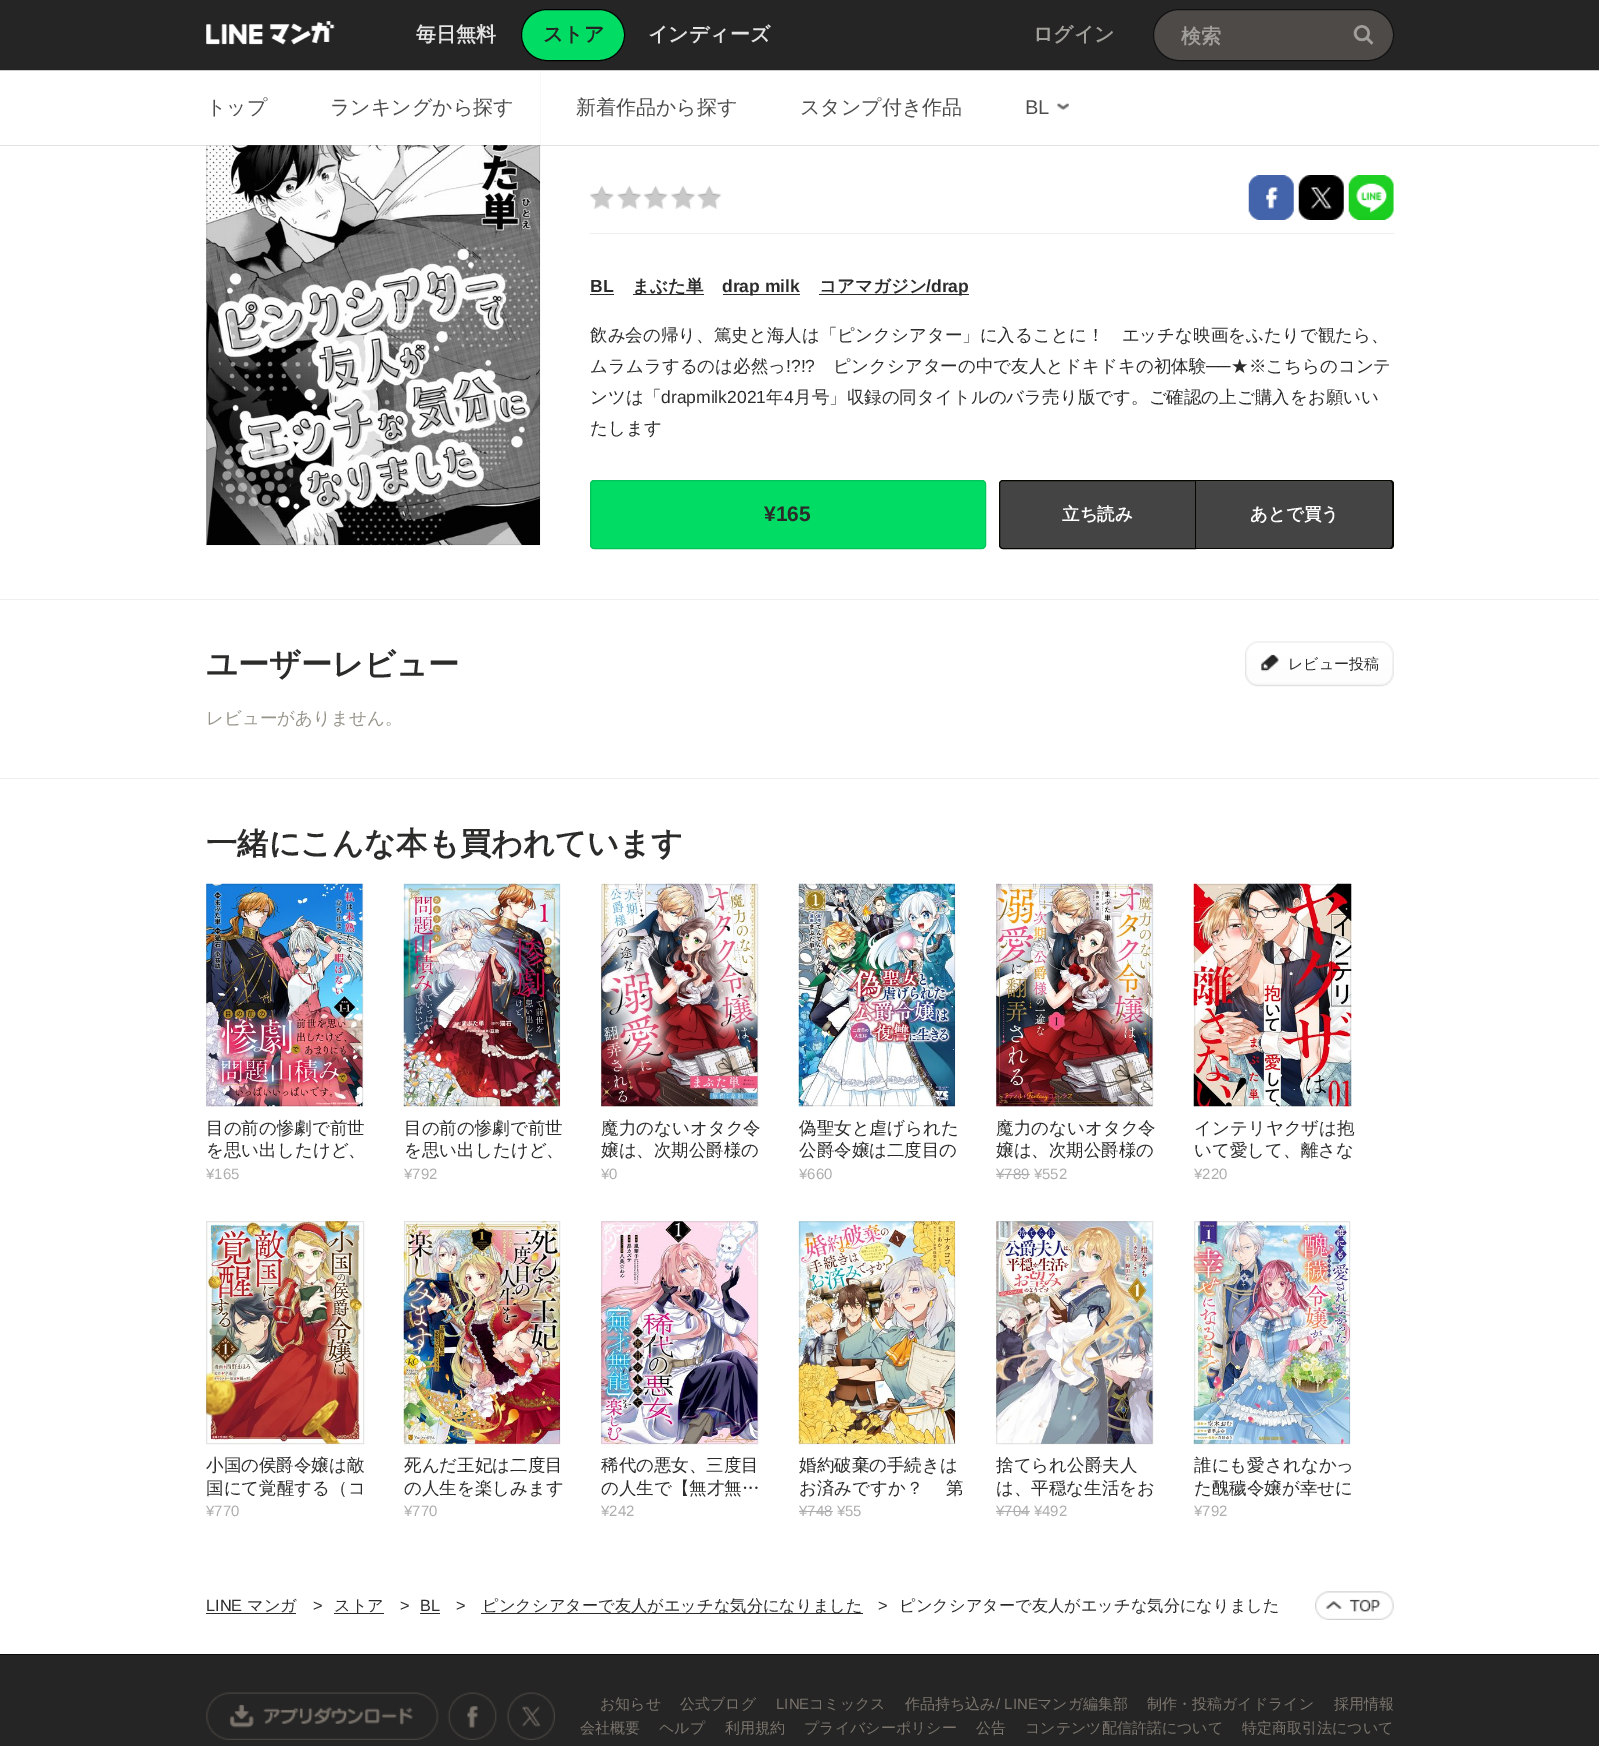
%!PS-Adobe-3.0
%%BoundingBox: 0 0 1599 1746
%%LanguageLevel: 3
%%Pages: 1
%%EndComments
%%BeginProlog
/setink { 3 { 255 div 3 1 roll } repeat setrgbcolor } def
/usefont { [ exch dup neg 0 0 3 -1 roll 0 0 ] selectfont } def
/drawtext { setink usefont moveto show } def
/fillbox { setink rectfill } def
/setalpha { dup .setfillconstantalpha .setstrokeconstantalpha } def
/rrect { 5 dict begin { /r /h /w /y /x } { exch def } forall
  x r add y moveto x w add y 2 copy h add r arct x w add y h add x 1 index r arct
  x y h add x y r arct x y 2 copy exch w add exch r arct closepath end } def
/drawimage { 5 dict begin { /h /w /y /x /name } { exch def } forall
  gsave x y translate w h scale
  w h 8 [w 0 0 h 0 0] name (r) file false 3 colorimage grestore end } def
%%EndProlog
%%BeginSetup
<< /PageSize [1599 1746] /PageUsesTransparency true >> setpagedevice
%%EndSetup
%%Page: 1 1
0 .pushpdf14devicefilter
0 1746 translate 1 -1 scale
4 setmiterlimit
0 0 1599 1746 255 255 255 fillbox
0 0 1599 70 38 37 37 fillbox
(assets/img1.rgb) 206 21 129 24 drawimage
(毎日無料) 416 41 /WenQuanYiZenHei-Bold 20 227 227 227 drawtext
0 220 100 setink
521.5 9.5 103 51 25.5 rrect gsave fill grestore
0 0 0 setink
stroke
(ストア) 543 41 /WenQuanYiZenHei-Bold 20 38 37 37 drawtext
(インディーズ) 648 41 /WenQuanYiZenHei-Bold 20 227 227 227 drawtext
(ログイン) 1033 41 /WenQuanYiZenHei-Bold 20 161 159 154 drawtext
77 74 72 setink
1153.5 9.5 240 51 25.5 rrect gsave fill grestore
18 17 17 setink
stroke
(検索) 1181 43 /WenQuanYiZenHei-Bold 20 161 159 154 drawtext
(assets/img2.rgb) 1353 25 21 20 drawimage
(assets/img4.rgb) 206 145 334 400 drawimage
0.1 setalpha
0 0 0 setink
206.5 70.5 333 474 rectstroke
1 setalpha
0 70 1599 1 204 204 204 fillbox
206 71 334 74 255 255 255 fillbox
(トップ) 206 114 /WenQuanYiZenHei-Medium 20 77 77 77 drawtext
(ランキングから探す) 330 114 /WenQuanYiZenHei-Medium 20 77 77 77 drawtext
(新着作品から探す) 576 114 /WenQuanYiZenHei-Medium 20 77 77 77 drawtext
(スタンプ付き作品) 800 114 /WenQuanYiZenHei-Medium 20 77 77 77 drawtext
(BL) 1025 114 /LiberationSans-Regular 20 77 77 77 drawtext
(assets/img3.rgb) 1057 103 12 7 drawimage
0.2 setalpha
0 145 1599 1 111 107 107 fillbox
1 setalpha
(assets/img5.rgb) 590 186 132 23 drawimage
(assets/img6.rgb) 1248 175 46 45 drawimage
(assets/img7.rgb) 1298 175 46 45 drawimage
(assets/img8.rgb) 1348 175 46 45 drawimage
590 233 804 1 240 239 237 fillbox
(BL) 590 292 /LiberationSans-Bold 17.5 43 43 42 drawtext
590 294 24 1 43 43 42 fillbox
633 294 71 1 43 43 42 fillbox
(まぶた単) 632 292 /WenQuanYiZenHei-Bold 17.5 43 43 42 drawtext
723 294 77 1 43 43 42 fillbox
(drap milk) 722 292 /LiberationSans-Bold 17.5 43 43 42 drawtext
(コアマガジン) 819 292 /WenQuanYiZenHei-Bold 17.5 43 43 42 drawtext
819 294 150 1 43 43 42 fillbox
(/drap) 926 292 /LiberationSans-Bold 17.5 43 43 42 drawtext
(飲み会の帰り、篤史と海人は「ピンクシアター」に入ることに！　エッチな映画をふたりで観たら、) 590 341 /WenQuanYiZenHei-Medium 17.5 43 43 42 drawtext
(ムラムラするのは必然っ) 590 372 /WenQuanYiZenHei-Medium 17.5 43 43 42 drawtext
(!?!?) 786 372 /LiberationSans-Regular 17.5 43 43 42 drawtext
(ピンクシアターの中で友人とドキドキの初体験) 833 372 /WenQuanYiZenHei-Medium 17.5 43 43 42 drawtext
(──) 1206 372 /LiberationSans-Regular 17.5 43 43 42 drawtext
(★※こちらのコンテ) 1231 372 /WenQuanYiZenHei-Medium 17.5 43 43 42 drawtext
(ンツは「) 590 403 /WenQuanYiZenHei-Medium 17.5 43 43 42 drawtext
(drapmilk2021) 661 403 /LiberationSans-Regular 17.5 43 43 42 drawtext
(年) 766 403 /WenQuanYiZenHei-Medium 17.5 43 43 42 drawtext
(4) 784 403 /LiberationSans-Regular 17.5 43 43 42 drawtext
(月号」収録の同タイトルのバラ売り版です。ご確認の上ご購入をお願いい) 794 403 /WenQuanYiZenHei-Medium 17.5 43 43 42 drawtext
(たします) 590 434 /WenQuanYiZenHei-Medium 17.5 43 43 42 drawtext
0 220 100 setink
590.5 480.5 395 68 3.5 rrect gsave fill grestore
3 195 89 setink
stroke
(¥165) 764 521 /LiberationSans-Bold 21 43 43 42 drawtext
68 68 68 setink
1003 480.5 moveto 1195.5 480.5 lineto 1195.5 548.5 lineto 1003 548.5 lineto 1001 548.5 999.5 547 999.5 545 curveto 999.5 484 lineto 999.5 482 1001 480.5 1003 480.5 curveto closepath gsave fill grestore
5 6 0 setink
stroke
(立ち読み) 1062 520 /WenQuanYiZenHei-Bold 17.5 255 255 255 drawtext
68 68 68 setink
1196 480 moveto 1390 480 lineto 1392 480 1394 482 1394 484 curveto 1394 545 lineto 1394 547 1392 549 1390 549 curveto 1196 549 lineto closepath fill
5 6 0 setink
1196 480 moveto 1390 480 lineto 1392 480 1394 482 1394 484 curveto 1394 545 lineto 1394 547 1392 549 1390 549 curveto 1196 549 lineto closepath 1196 481 moveto 1390 481 lineto 1391 481 1392 482 1392 484 curveto 1392 545 lineto 1392 546 1391 548 1390 548 curveto 1196 548 lineto closepath eofill
(あとで買う) 1250 520 /WenQuanYiZenHei-Bold 17.5 255 255 255 drawtext
0 599 1599 1 240 239 237 fillbox
(ユーザーレビュー) 206 675 /WenQuanYiZenHei-Bold 31.25 43 43 42 drawtext
(assets/img9.rgb) 1245 641 149 46 drawimage
(レビュー投稿) 1288 669 /WenQuanYiZenHei-Medium 15 43 43 42 drawtext
(レビューがありません。) 206 724 /WenQuanYiZenHei-Medium 17.5 151 149 139 drawtext
0 778 1599 1 240 239 237 fillbox
(一緒にこんな本も買われています) 206 854 /WenQuanYiZenHei-Bold 31.25 43 43 42 drawtext
(assets/img10.rgb) 206 883 157 224 drawimage
0.1 setalpha
0 0 0 setink
206.5 884.5 156 221 rectstroke
1 setalpha
(目の前の惨劇で前世) 206 1134 /WenQuanYiZenHei-Medium 17.5 43 43 42 drawtext
(を思い出したけど、) 206 1156 /WenQuanYiZenHei-Medium 17.5 43 43 42 drawtext
(¥165) 206 1179 /LiberationSans-Regular 15 172 173 174 drawtext
(assets/img11.rgb) 403 883 157 224 drawimage
0.1 setalpha
0 0 0 setink
404.5 884.5 155 221 rectstroke
1 setalpha
(目の前の惨劇で前世) 404 1134 /WenQuanYiZenHei-Medium 17.5 43 43 42 drawtext
(を思い出したけど、) 404 1156 /WenQuanYiZenHei-Medium 17.5 43 43 42 drawtext
(¥792) 404 1179 /LiberationSans-Regular 15 172 173 174 drawtext
(assets/img12.rgb) 601 883 157 224 drawimage
0.1 setalpha
0 0 0 setink
601.5 884.5 156 221 rectstroke
1 setalpha
(魔力のないオタク令) 601 1134 /WenQuanYiZenHei-Medium 17.5 43 43 42 drawtext
(嬢は、次期公爵様の) 601 1156 /WenQuanYiZenHei-Medium 17.5 43 43 42 drawtext
(¥0) 601 1179 /LiberationSans-Regular 15 172 173 174 drawtext
(assets/img13.rgb) 798 883 157 224 drawimage
0.1 setalpha
0 0 0 setink
799.5 884.5 155 221 rectstroke
1 setalpha
(偽聖女と虐げられた) 799 1134 /WenQuanYiZenHei-Medium 17.5 43 43 42 drawtext
(公爵令嬢は二度目の) 799 1156 /WenQuanYiZenHei-Medium 17.5 43 43 42 drawtext
(¥660) 799 1179 /LiberationSans-Regular 15 172 173 174 drawtext
(assets/img14.rgb) 996 883 157 224 drawimage
0.1 setalpha
0 0 0 setink
996.5 884.5 156 221 rectstroke
1 setalpha
(魔力のないオタク令) 996 1134 /WenQuanYiZenHei-Medium 17.5 43 43 42 drawtext
(嬢は、次期公爵様の) 996 1156 /WenQuanYiZenHei-Medium 17.5 43 43 42 drawtext
(¥789 ¥552) 996 1179 /LiberationSans-Regular 15 172 173 174 drawtext
996 1174 34 1 172 173 174 fillbox
(assets/img15.rgb) 1193 883 159 224 drawimage
0.1 setalpha
0 0 0 setink
1194.5 884.5 156 221 rectstroke
1 setalpha
(インテリヤクザは抱) 1194 1134 /WenQuanYiZenHei-Medium 17.5 43 43 42 drawtext
(いて愛して、離さな) 1194 1156 /WenQuanYiZenHei-Medium 17.5 43 43 42 drawtext
(¥220) 1194 1179 /LiberationSans-Regular 15 172 173 174 drawtext
(assets/img16.rgb) 206 1221 158 223 drawimage
0.1 setalpha
0 0 0 setink
206.5 1221.5 157 222 rectstroke
1 setalpha
(小国の侯爵令嬢は敵) 206 1471 /WenQuanYiZenHei-Medium 17.5 43 43 42 drawtext
(国にて覚醒する（コ) 206 1494 /WenQuanYiZenHei-Medium 17.5 43 43 42 drawtext
(¥770) 206 1516 /LiberationSans-Regular 15 172 173 174 drawtext
(assets/img17.rgb) 403 1221 157 223 drawimage
0.1 setalpha
0 0 0 setink
404.5 1221.5 155 222 rectstroke
1 setalpha
(死んだ王妃は二度目) 404 1471 /WenQuanYiZenHei-Medium 17.5 43 43 42 drawtext
(の人生を楽しみます) 404 1494 /WenQuanYiZenHei-Medium 17.5 43 43 42 drawtext
(¥770) 404 1516 /LiberationSans-Regular 15 172 173 174 drawtext
(assets/img18.rgb) 601 1221 157 223 drawimage
0.1 setalpha
0 0 0 setink
601.5 1221.5 156 222 rectstroke
1 setalpha
(稀代の悪女、三度目) 601 1471 /WenQuanYiZenHei-Medium 17.5 43 43 42 drawtext
(の人生で【無才無…) 601 1494 /WenQuanYiZenHei-Medium 17.5 43 43 42 drawtext
(¥242) 601 1516 /LiberationSans-Regular 15 172 173 174 drawtext
(assets/img19.rgb) 798 1221 157 223 drawimage
0.1 setalpha
0 0 0 setink
799.5 1221.5 155 222 rectstroke
1 setalpha
(婚約破棄の手続きは) 799 1471 /WenQuanYiZenHei-Medium 17.5 43 43 42 drawtext
(お済みですか？ 　第) 799 1494 /WenQuanYiZenHei-Medium 17.5 43 43 42 drawtext
(¥748 ¥55) 799 1516 /LiberationSans-Regular 15 172 173 174 drawtext
799 1511 34 1 172 173 174 fillbox
(assets/img20.rgb) 996 1221 157 223 drawimage
0.1 setalpha
0 0 0 setink
996.5 1221.5 156 222 rectstroke
1 setalpha
(捨てられ公爵夫人) 996 1471 /WenQuanYiZenHei-Medium 17.5 43 43 42 drawtext
(は、平穏な生活をお) 996 1494 /WenQuanYiZenHei-Medium 17.5 43 43 42 drawtext
(¥704 ¥492) 996 1516 /LiberationSans-Regular 15 172 173 174 drawtext
996 1511 34 1 172 173 174 fillbox
(assets/img21.rgb) 1193 1221 157 223 drawimage
0.1 setalpha
0 0 0 setink
1194.5 1221.5 155 222 rectstroke
1 setalpha
(誰にも愛されなかっ) 1194 1471 /WenQuanYiZenHei-Medium 17.5 43 43 42 drawtext
(た醜穢令嬢が幸せに) 1194 1494 /WenQuanYiZenHei-Medium 17.5 43 43 42 drawtext
(¥792) 1194 1516 /LiberationSans-Regular 15 172 173 174 drawtext
(LINE) 206 1611 /LiberationSans-Regular 16.25 43 43 42 drawtext
(マンガ) 247 1611 /WenQuanYiZenHei-Medium 16.25 43 43 42 drawtext
206 1613 90 1 43 43 42 fillbox
(>) 313 1611 /LiberationSans-Regular 16.25 43 43 42 drawtext
(ストア) 334 1611 /WenQuanYiZenHei-Medium 16.25 43 43 42 drawtext
334 1613 50 1 43 43 42 fillbox
(>) 400 1611 /LiberationSans-Regular 16.25 43 43 42 drawtext
(BL) 420 1611 /LiberationSans-Regular 16.25 43 43 42 drawtext
420 1613 20 1 43 43 42 fillbox
(>) 456 1611 /LiberationSans-Regular 16.25 43 43 42 drawtext
481 1613 382 1 43 43 42 fillbox
(ピンクシアターで友人がエッチな気分になりました) 482 1611 /WenQuanYiZenHei-Medium 16.25 43 43 42 drawtext
(>) 878 1611 /LiberationSans-Regular 16.25 43 43 42 drawtext
(ピンクシアターで友人がエッチな気分になりました) 899 1611 /WenQuanYiZenHei-Medium 16.25 43 43 42 drawtext
(assets/img22.rgb) 1315 1591 79 29 drawimage
0 1655 1599 91 38 37 37 fillbox
0 1654 1599 1 11 10 10 fillbox
(assets/img23.rgb) 206 1692 233 48 drawimage
(assets/img24.rgb) 447 1692 50 48 drawimage
(assets/img25.rgb) 507 1692 48 48 drawimage
(お知らせ) 600 1709 /WenQuanYiZenHei-Medium 15 122 116 108 drawtext
(公式ブログ) 680 1709 /WenQuanYiZenHei-Medium 15 122 116 108 drawtext
(LINE) 776 1709 /LiberationSans-Regular 15 122 116 108 drawtext
(コミックス) 809 1709 /WenQuanYiZenHei-Medium 15 122 116 108 drawtext
(作品持ち込み) 905 1709 /WenQuanYiZenHei-Medium 15 122 116 108 drawtext
(/ LINE) 996 1709 /LiberationSans-Regular 15 122 116 108 drawtext
(マンガ編集部) 1037 1709 /WenQuanYiZenHei-Medium 15 122 116 108 drawtext
(制作・投稿ガイドライン) 1147 1709 /WenQuanYiZenHei-Medium 15 122 116 108 drawtext
(採用情報) 1334 1709 /WenQuanYiZenHei-Medium 15 122 116 108 drawtext
(会社概要) 580 1733 /WenQuanYiZenHei-Medium 15 122 116 108 drawtext
(ヘルプ) 659 1733 /WenQuanYiZenHei-Medium 15 122 116 108 drawtext
(利用規約) 725 1733 /WenQuanYiZenHei-Medium 15 122 116 108 drawtext
(プライバシーポリシー) 804 1733 /WenQuanYiZenHei-Medium 15 122 116 108 drawtext
(公告) 976 1733 /WenQuanYiZenHei-Medium 15 122 116 108 drawtext
(コンテンツ配信許諾について) 1025 1733 /WenQuanYiZenHei-Medium 15 122 116 108 drawtext
(特定商取引法について) 1242 1733 /WenQuanYiZenHei-Medium 15 122 116 108 drawtext
.poppdf14devicefilter showpage
%%EOF
